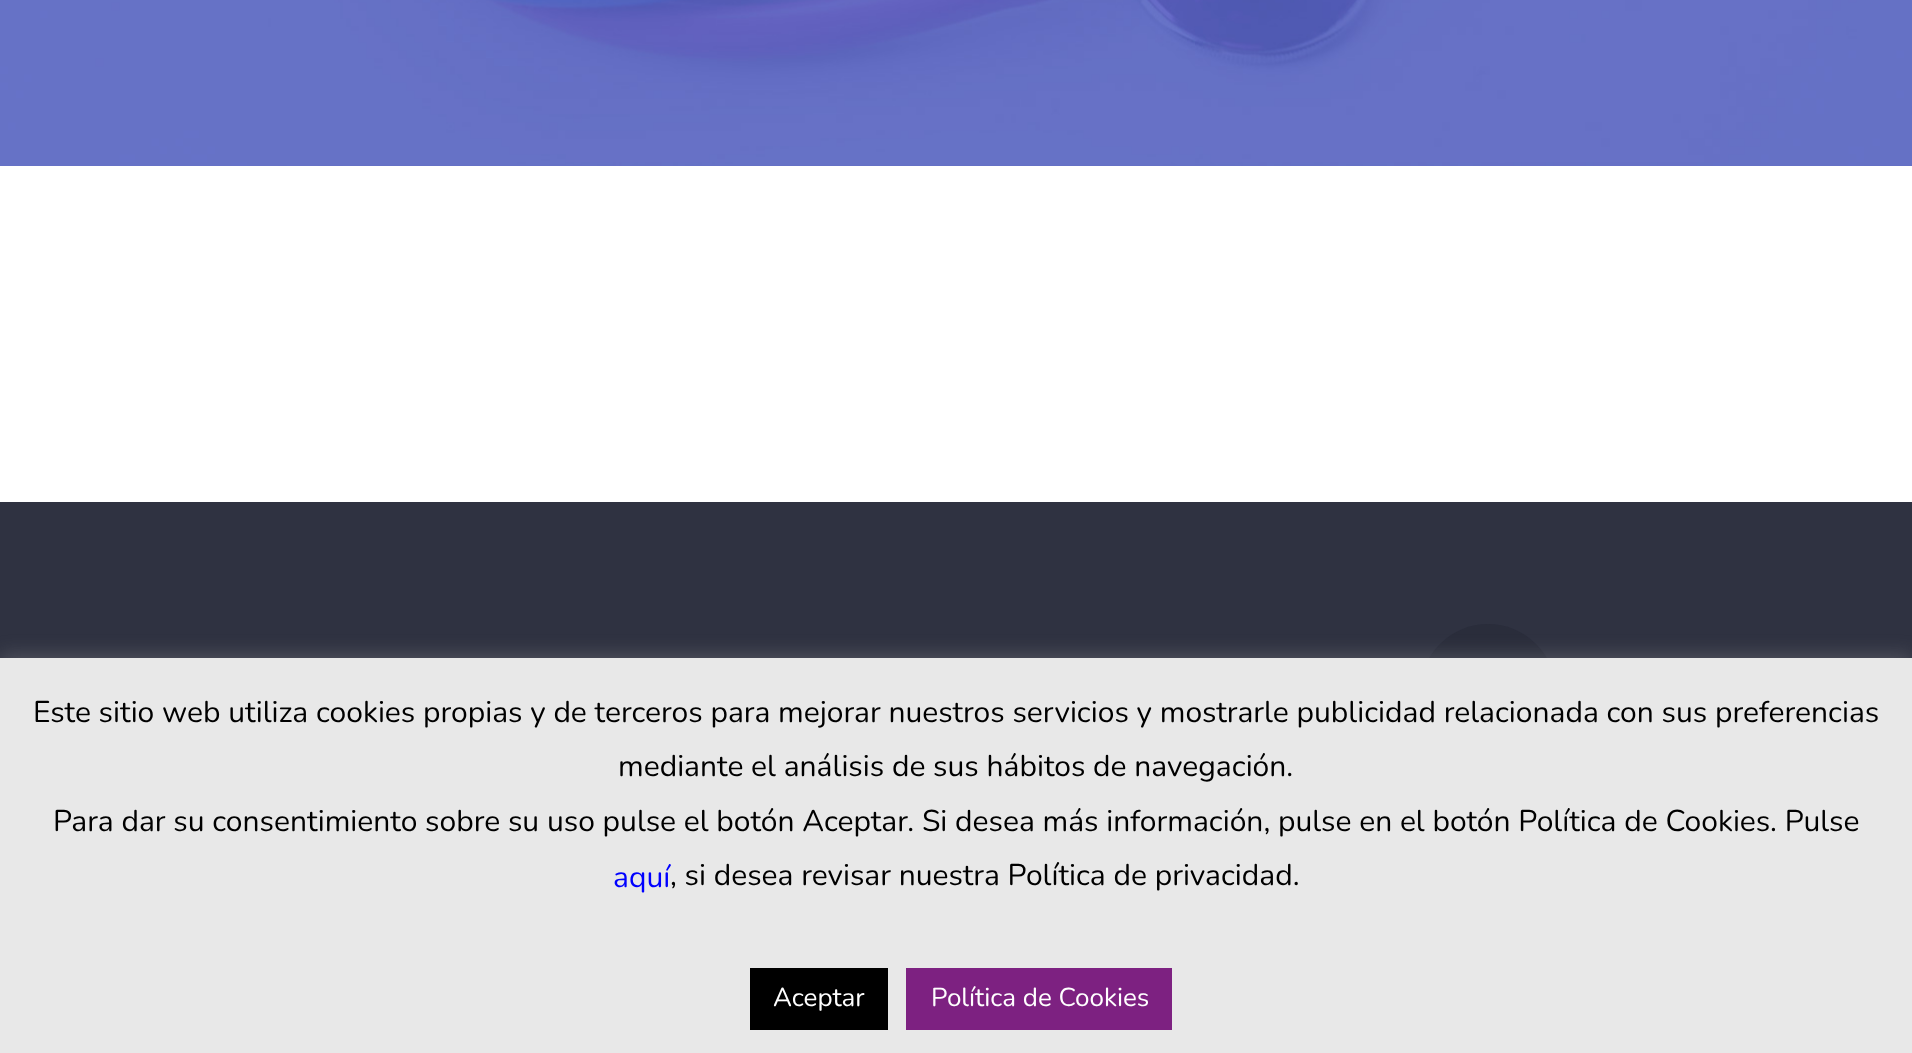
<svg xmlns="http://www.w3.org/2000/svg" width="1912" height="1053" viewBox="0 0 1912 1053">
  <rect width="100%" height="100%" fill="rgb(255,255,255)"/>
  <image x="0" y="0" width="1912" height="166" href="pic1.png"/>
  <rect x="0" y="502" width="1912" height="156" fill="rgb(47,50,65)"/>
  <circle cx="1488" cy="692" r="68" fill="rgb(42,45,59)"/>
  <rect x="0" y="656" width="1912" height="396" fill="rgba(172,171,171,0.3)" filter="blur(10px)"/>
  <rect x="0" y="658" width="1912" height="395" fill="rgb(232,232,232)"/>
  <g font-family="Nunito" font-size="30" fill="rgb(0,0,0)">
    <text x="33" y="722">Este sitio web utiliza cookies propias y de terceros para mejorar nuestros servicios y mostrarle publicidad relacionada con sus preferencias</text>
    <text x="618" y="776">mediante el análisis de sus hábitos de navegación.</text>
    <text x="53" y="831">Para dar su consentimiento sobre su uso pulse el botón Aceptar. Si desea más información, pulse en el botón Política de Cookies. Pulse</text>
  </g>
  <text x="613" y="887" font-family="Nunito" font-size="30" fill="rgb(0,0,255)">aquí</text>
  <text x="670" y="885" font-family="Nunito" font-size="30" fill="rgb(0,0,0)">, si desea revisar nuestra Política de privacidad.</text>
  <rect x="750" y="968" width="138" height="62" fill="rgb(0,0,0)"/>
  <text x="773" y="1006" font-family="Nunito" font-size="26" fill="rgb(255,255,255)">Aceptar</text>
  <rect x="906" y="968" width="266" height="62" fill="rgb(125,33,129)"/>
  <text x="931" y="1006" font-family="Nunito" font-size="26" fill="rgb(255,255,255)">Política de Cookies</text>
</svg>
